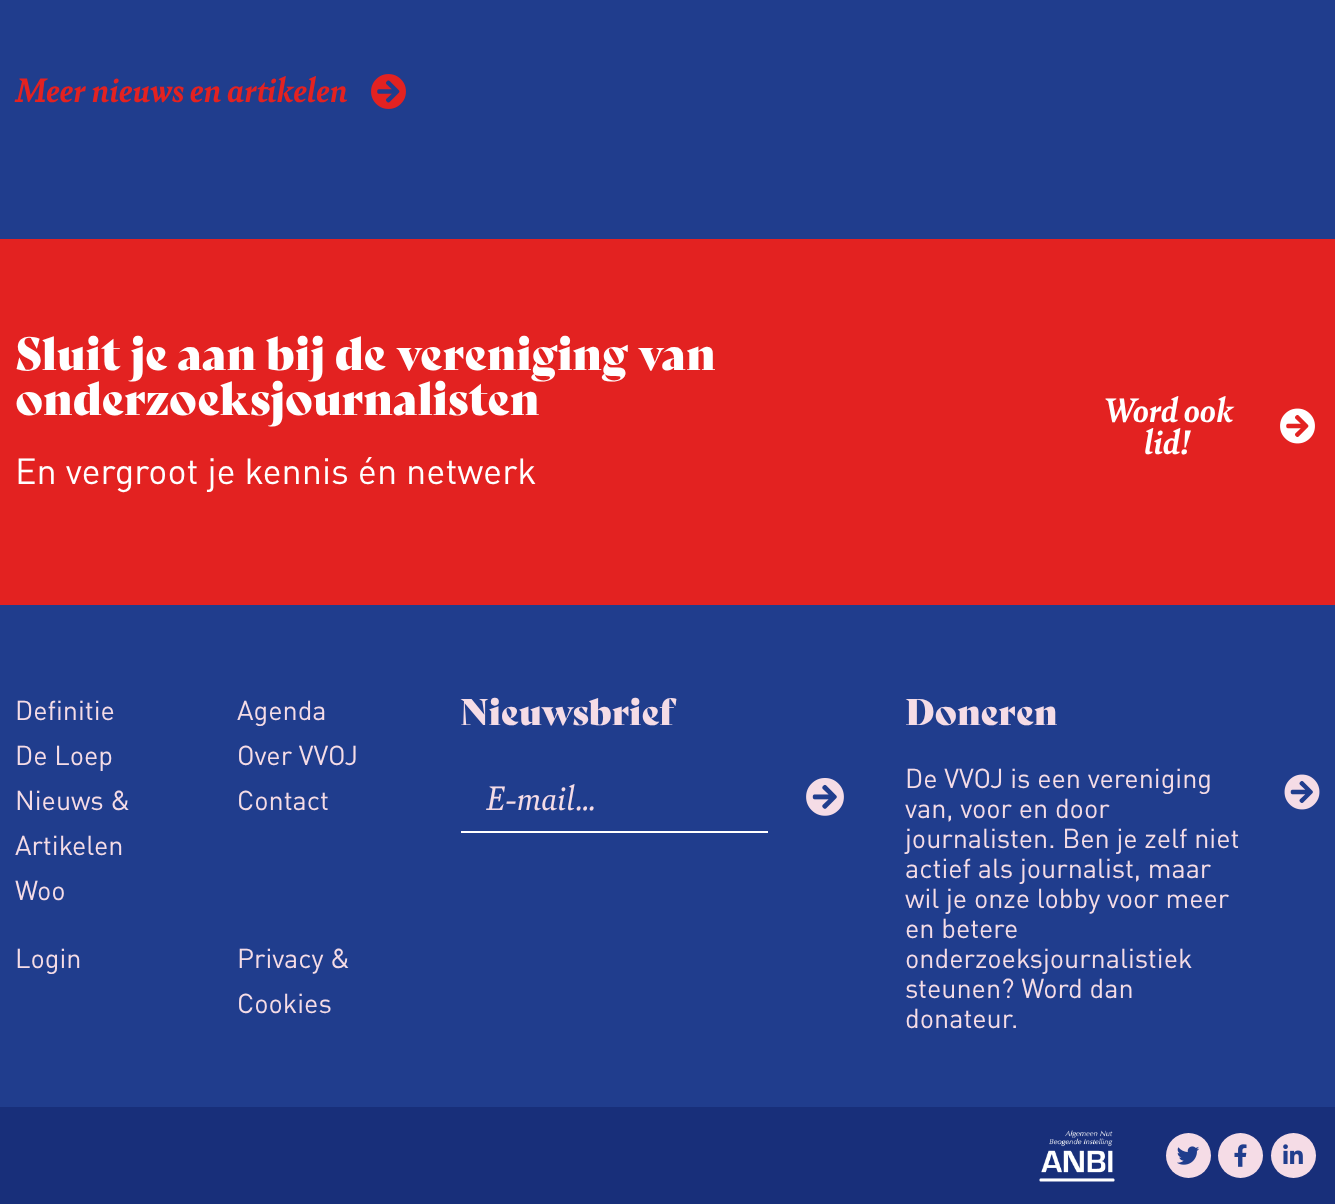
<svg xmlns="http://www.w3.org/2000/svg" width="1335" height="1204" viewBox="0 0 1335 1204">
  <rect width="100%" height="100%" fill="rgb(32,61,141)"/>
  <text x="15" y="102" font-family="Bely" font-size="36" font-weight="bold" font-style="italic" fill="rgb(227,34,33)">Meer nieuws en artikelen</text>
  <image x="371" y="74" width="35" height="35" href="pic1.png"/>
  <rect x="0" y="239" width="1335" height="366" fill="rgb(227,34,33)"/>
  <g font-family="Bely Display" font-size="45" fill="rgb(255,255,255)">
    <text>
      <tspan x="15" y="370">Sluit je aan bij de vereniging van</tspan>
      <tspan x="15" y="415">onderzoeksjournalisten</tspan>
    </text>
  </g>
  <text x="15" y="484" font-family="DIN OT" font-size="36" fill="rgb(255,255,255)">En vergroot je kennis én netwerk</text>
  <g font-family="Bely" font-size="36" font-weight="bold" font-style="italic" fill="rgb(255,255,255)">
    <text x="1103" y="422">Word ook</text>
    <text x="1144" y="454">lid!</text>
  </g>
  <image x="1280" y="408" width="35" height="36" href="pic2.png"/>
  <g font-family="DIN OT" font-size="27" fill="rgb(245,220,230)">
    <text>
      <tspan x="15" y="720">Definitie</tspan>
      <tspan x="15" y="765">De Loep</tspan>
      <tspan x="15" y="810">Nieuws &amp;</tspan>
      <tspan x="15" y="855">Artikelen</tspan>
      <tspan x="15" y="900">Woo</tspan>
    </text>
    <text>
      <tspan x="237" y="720">Agenda</tspan>
      <tspan x="237" y="765">Over VVOJ</tspan>
      <tspan x="237" y="810">Contact</tspan>
    </text>
    <text x="15" y="968">Login</text>
    <text>
      <tspan x="237" y="968">Privacy &amp;</tspan>
      <tspan x="237" y="1013">Cookies</tspan>
    </text>
  </g>
  <text x="460" y="725" font-family="Bely Display" font-size="36" fill="rgb(245,220,230)">Nieuwsbrief</text>
  <rect x="461" y="831" width="307" height="2" fill="rgb(255,255,255)"/>
  <text x="485" y="810" font-family="Bely" font-size="36" font-style="italic" fill="rgb(245,220,230)">E-mail...</text>
  <image x="806" y="778" width="38" height="38" href="pic3.png"/>
  <text x="905" y="725" font-family="Bely Display" font-size="36" fill="rgb(245,220,230)">Doneren</text>
  <g font-family="DIN OT" font-size="27" fill="rgb(245,220,230)">
    <text>
      <tspan x="905" y="788">De VVOJ is een vereniging</tspan>
      <tspan x="905" y="818">van, voor en door</tspan>
      <tspan x="905" y="848">journalisten. Ben je zelf niet</tspan>
      <tspan x="905" y="878">actief als journalist, maar</tspan>
      <tspan x="905" y="908">wil je onze lobby voor meer</tspan>
      <tspan x="905" y="938">en betere</tspan>
      <tspan x="905" y="968">onderzoeksjournalistiek</tspan>
      <tspan x="905" y="998">steunen? Word dan</tspan>
      <tspan x="905" y="1028">donateur.</tspan>
    </text>
  </g>
  <image x="1284" y="774" width="36" height="36" href="pic4.png"/>
  <rect x="0" y="1107" width="1335" height="97" fill="rgb(24,47,122)"/>
  <image x="1039" y="1130" width="76" height="52" href="pic5.png"/>
  <circle cx="1188.5" cy="1155.5" r="22.5" fill="rgb(245,220,230)"/>
  <image x="1177" y="1146" width="23" height="19" href="pic6.png"/>
  <circle cx="1240.5" cy="1155.5" r="22.5" fill="rgb(245,220,230)"/>
  <image x="1234" y="1144" width="13" height="23" href="pic7.png"/>
  <circle cx="1293.5" cy="1155.5" r="22.5" fill="rgb(245,220,230)"/>
  <image x="1283" y="1144" width="20" height="20" href="pic8.png"/>
</svg>
